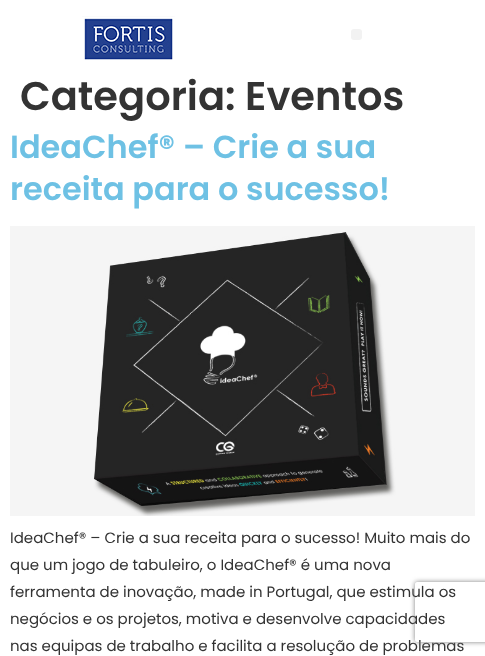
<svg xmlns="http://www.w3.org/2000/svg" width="485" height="656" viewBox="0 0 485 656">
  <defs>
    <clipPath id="clip1"><path d="M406 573H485V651H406ZM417 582H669C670 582 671 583 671 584V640C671 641 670 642 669 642H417C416 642 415 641 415 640V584C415 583 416 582 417 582Z" clip-rule="evenodd"/></clipPath>
  </defs>
  <rect width="100%" height="100%" fill="rgb(255,255,255)"/>
  <image x="82" y="16" width="93" height="44" href="pic1.png"/>
  <rect x="351" y="29" width="11" height="11" rx="3" fill="rgb(242,242,242)"/>
  <text x="20" y="110" font-family="Poppins" font-size="40" font-weight="600" fill="rgb(51,51,51)">Categoria: Eventos</text>
  <g font-family="Poppins" font-size="32" font-weight="600" fill="rgb(110,193,228)">
    <text>
      <tspan x="10" y="158">IdeaChef® – Crie a sua</tspan>
      <tspan x="10" y="200">receita para o sucesso!</tspan>
    </text>
  </g>
  <image x="10" y="226" width="465" height="290" href="pic2.png"/>
  <g font-family="Poppins" font-size="15" fill="rgb(51,51,51)">
    <text>
      <tspan x="10" y="543">IdeaChef® – Crie a sua receita para o sucesso! Muito mais do</tspan>
      <tspan x="10" y="570">que um jogo de tabuleiro, o IdeaChef® é uma nova</tspan>
      <tspan x="10" y="597">ferramenta de inovação, made in Portugal, que estimula os</tspan>
      <tspan x="10" y="624">negócios e os projetos, motiva e desenvolve capacidades</tspan>
      <tspan x="10" y="651">nas equipas de trabalho e facilita a resolução de problemas</tspan>
    </text>
  </g>
  <g clip-path="url(#clip1)">
    <rect x="415" y="582" width="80" height="60" rx="2" fill="rgb(128,128,128)" filter="blur(2.5px)"/>
  </g>
</svg>
